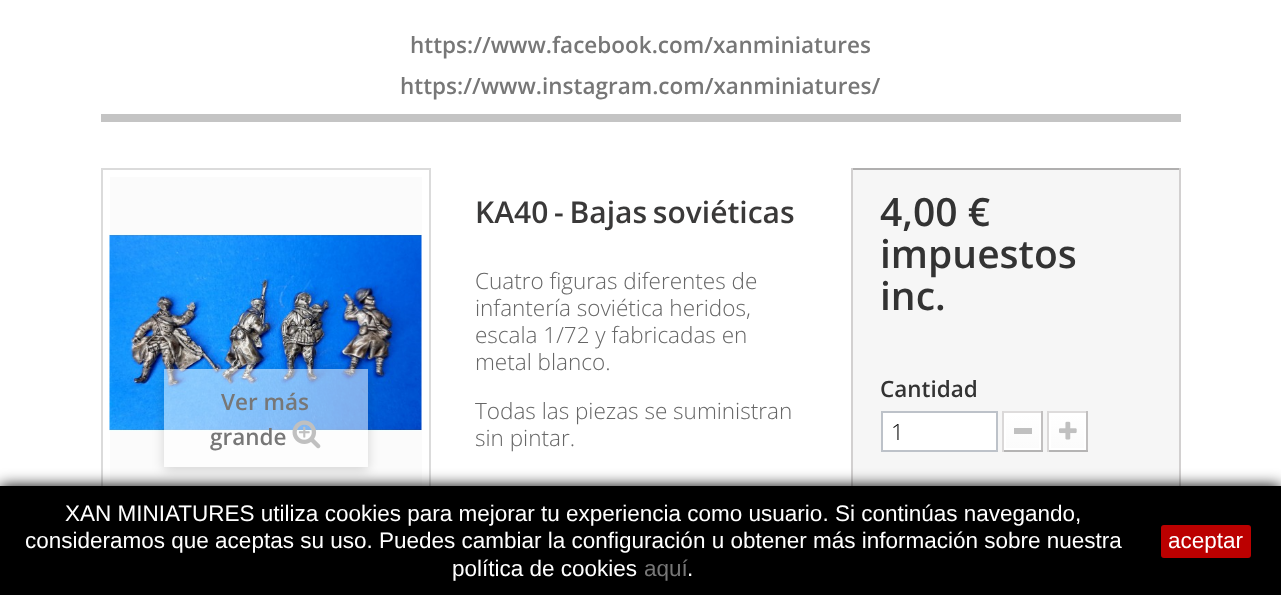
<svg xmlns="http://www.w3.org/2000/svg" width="1281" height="595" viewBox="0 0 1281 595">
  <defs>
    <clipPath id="clip1"><path d="M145 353H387V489H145ZM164 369H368V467H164Z" clip-rule="evenodd"/></clipPath>
    <linearGradient id="g1" gradientUnits="userSpaceOnUse" x1="1022" y1="414" x2="1022" y2="449"><stop offset="0" stop-color="rgb(255,255,255)"/><stop offset="1" stop-color="rgb(251,251,251)"/></linearGradient>
    <linearGradient id="g2" gradientUnits="userSpaceOnUse" x1="1067" y1="414" x2="1067" y2="449"><stop offset="0" stop-color="rgb(255,255,255)"/><stop offset="1" stop-color="rgb(251,251,251)"/></linearGradient>
  </defs>
  <rect width="100%" height="100%" fill="rgb(255,255,255)"/>
  <g font-family="Open Sans" font-size="22.5" font-weight="600" fill="rgb(119,119,119)">
    <text x="410" y="53">https://www.facebook.com/xanminiatures</text>
    <text x="400" y="94">https://www.instagram.com/xanminiatures/</text>
  </g>
  <rect x="101" y="114" width="1080" height="8" fill="rgb(196,196,196)"/>
  <rect x="102" y="169" width="328" height="328" fill="none" stroke="rgb(219,219,219)" stroke-width="2"/>
  <rect x="110" y="177" width="312" height="309" fill="rgb(251,251,251)"/>
  <image x="109" y="234" width="313" height="197" href="pic1.png"/>
  <g clip-path="url(#clip1)">
    <rect x="164" y="372" width="204" height="98" fill="rgba(0,0,0,0.16)" filter="blur(6px)"/>
  </g>
  <rect x="164" y="369" width="204" height="98" fill="rgba(255,255,255,0.5)"/>
  <g font-family="Open Sans" font-size="22.5" font-weight="600" fill="rgb(119,119,119)">
    <text x="221" y="410">Ver más</text>
    <text x="210" y="445">grande</text>
  </g>
  <image x="292" y="420" width="29" height="29" href="pic2.png"/>
  <text x="475" y="223" word-spacing="-2" font-family="Open Sans" font-size="30" font-weight="600" fill="rgb(58,57,57)">KA40 - Bajas soviéticas</text>
  <g font-family="Open Sans" font-size="22.5" font-weight="300" fill="rgb(102,102,102)">
    <text>
      <tspan x="475" y="289">Cuatro figuras diferentes de</tspan>
      <tspan x="475" y="316">infantería soviética heridos,</tspan>
      <tspan x="475" y="343">escala 1/72 y fabricadas en</tspan>
      <tspan x="475" y="370">metal blanco.</tspan>
    </text>
    <text>
      <tspan x="475" y="419">Todas las piezas se suministran</tspan>
      <tspan x="475" y="446">sin pintar.</tspan>
    </text>
  </g>
  <rect x="853" y="170" width="326" height="316" fill="rgb(246,246,246)"/>
  <rect x="851" y="168" width="330" height="2" fill="rgb(176,175,175)"/>
  <rect x="1179" y="168" width="2" height="318" fill="rgb(210,208,208)"/>
  <rect x="851" y="168" width="2" height="318" fill="rgb(210,208,208)"/>
  <g font-family="Open Sans" font-size="39" font-weight="600" fill="rgb(51,51,51)">
    <text>
      <tspan x="880" y="226">4,00 €</tspan>
      <tspan x="880" y="268">impuestos</tspan>
      <tspan x="880" y="310">inc.</tspan>
    </text>
  </g>
  <text x="880" y="397" font-family="Open Sans" font-size="22.5" font-weight="600" fill="rgb(51,51,51)">Cantidad</text>
  <rect x="882" y="412" width="115" height="39" fill="rgb(255,255,255)" stroke="rgb(189,194,201)" stroke-width="2"/>
  <text x="891" y="440" font-family="Open Sans" font-size="22.5" font-weight="300" fill="rgb(0,0,0)">1</text>
  <rect x="1002" y="411" width="41" height="2" fill="rgb(222,220,220)"/>
  <rect x="1041" y="411" width="2" height="41" fill="rgb(193,191,191)"/>
  <rect x="1002" y="450" width="41" height="2" fill="rgb(181,180,180)"/>
  <rect x="1002" y="411" width="2" height="41" fill="rgb(218,216,216)"/>
  <rect x="1006" y="415" width="33" height="33" fill="url(#g1)"/>
  <rect x="1005" y="414" width="35" height="35" fill="none" stroke="rgb(255,255,255)" stroke-width="2"/>
  <rect x="1014" y="428" width="18" height="6" fill="rgb(192,192,192)"/>
  <rect x="1047" y="411" width="41" height="2" fill="rgb(222,220,220)"/>
  <rect x="1086" y="411" width="2" height="41" fill="rgb(193,191,191)"/>
  <rect x="1047" y="450" width="41" height="2" fill="rgb(181,180,180)"/>
  <rect x="1047" y="411" width="2" height="41" fill="rgb(218,216,216)"/>
  <rect x="1051" y="415" width="33" height="33" fill="url(#g2)"/>
  <rect x="1050" y="414" width="35" height="35" fill="none" stroke="rgb(255,255,255)" stroke-width="2"/>
  <image x="1059" y="421" width="18" height="19" href="pic3.png"/>
  <rect x="0" y="486" width="1281" height="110" fill="rgb(0,0,0)" filter="blur(7.5px)"/>
  <rect x="0" y="486" width="1281" height="109" fill="rgb(0,0,0)"/>
  <g font-family="Liberation Sans" font-size="22.5" fill="rgb(255,255,255)">
    <text x="65" y="521">XAN MINIATURES utiliza cookies para mejorar tu experiencia como usuario. Si continúas navegando,</text>
    <text x="25" y="548">consideramos que aceptas su uso. Puedes cambiar la configuración u obtener más información sobre nuestra</text>
    <text x="452" y="576">política de cookies</text>
  </g>
  <text x="644" y="576" font-family="Liberation Sans" font-size="22.5" fill="rgb(119,119,119)">aquí</text>
  <text x="687" y="576" font-family="Liberation Sans" font-size="22.5" fill="rgb(255,255,255)">.</text>
  <rect x="1161" y="525" width="90" height="33" rx="3" fill="rgb(187,0,0)"/>
  <text x="1168" y="548" font-family="Liberation Sans" font-size="22.5" fill="rgb(255,255,255)">aceptar</text>
</svg>
